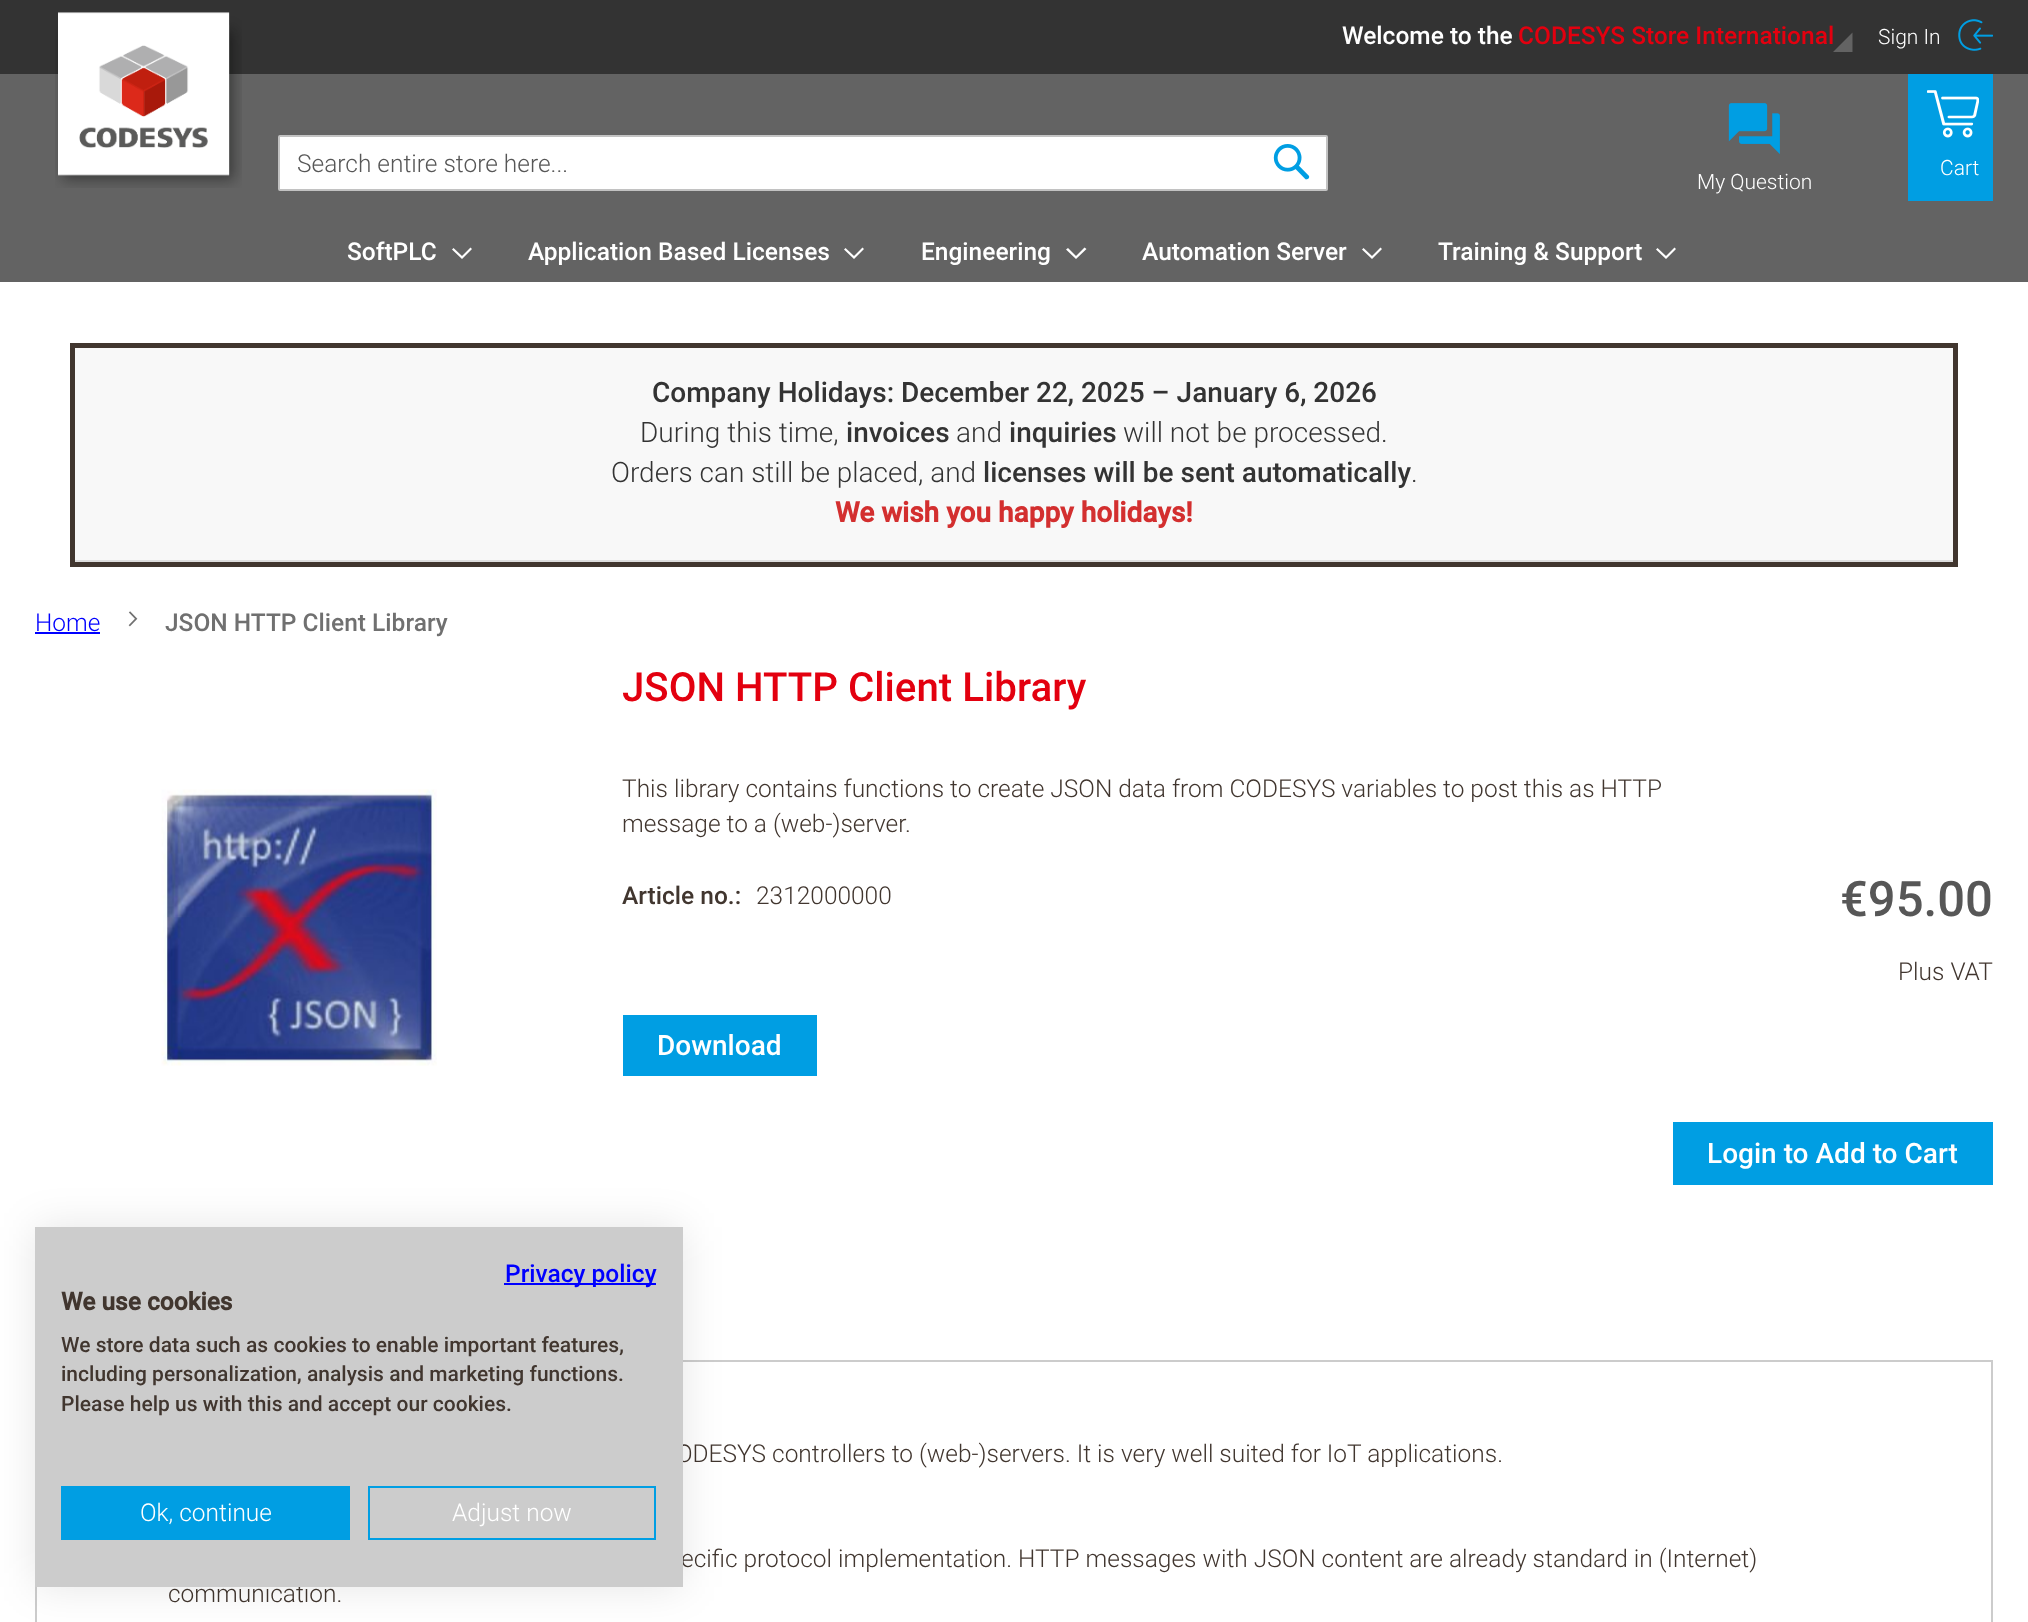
<svg xmlns="http://www.w3.org/2000/svg" width="2028" height="1622" viewBox="0 0 2028 1622">
  <rect width="100%" height="100%" fill="rgb(255,255,255)"/>
  <rect x="0" y="74" width="2028" height="208" fill="rgb(99,99,99)"/>
  <rect x="0" y="0" width="2028" height="74" fill="rgb(51,51,51)"/>
  <text x="1342" y="44" font-family="Roboto" font-size="24.5" font-weight="500" fill="rgb(255,255,255)">Welcome to the</text>
  <text x="1518" y="44" font-family="Roboto" font-size="24.5" font-weight="500" fill="rgb(227,0,15)">CODESYS Store International</text>
  <path d="M1833 52L1852.5 32.5V52Z" fill="rgb(99,99,99)"/>
  <text x="1878" y="44" font-family="Roboto" font-size="21" font-weight="300" fill="rgb(255,255,255)">Sign In</text>
  <image x="1958" y="19" width="35" height="32" href="pic1.png"/>
  <image x="55" y="12" width="187" height="176" href="pic2.png"/>
  <rect x="279" y="136" width="1048" height="54" rx="1" fill="rgb(255,255,255)" stroke="rgb(194,194,194)" stroke-width="2"/>
  <text x="297" y="172" font-family="Roboto" font-size="24.5" font-weight="300" fill="rgb(87,87,87)">Search entire store here...</text>
  <image x="1273" y="144" width="37" height="36" href="pic3.png"/>
  <rect x="1908" y="74" width="85" height="127" fill="rgb(0,158,227)"/>
  <image x="1927" y="90" width="52" height="48" href="pic4.png"/>
  <text x="1940" y="175" font-family="Roboto" font-size="21" font-weight="300" fill="rgb(255,255,255)">Cart</text>
  <image x="1728" y="103" width="52" height="51" href="pic5.png"/>
  <text x="1697" y="189" font-family="Roboto" font-size="21" font-weight="300" fill="rgb(255,255,255)">My Question</text>
  <text x="347" y="260" font-family="Roboto" font-size="24.5" font-weight="500" fill="rgb(255,255,255)">SoftPLC</text>
  <path d="M462 256L453.5 248L452 249.5L462 259L472 249L470.5 247.5Z" fill="rgb(255,255,255)"/>
  <text x="528" y="260" font-family="Roboto" font-size="24.5" font-weight="500" fill="rgb(255,255,255)">Application Based Licenses</text>
  <path d="M854 256L845.5 248L844 249.5L854 259L864 249L862.5 247.5Z" fill="rgb(255,255,255)"/>
  <text x="921" y="260" font-family="Roboto" font-size="24.5" font-weight="500" fill="rgb(255,255,255)">Engineering</text>
  <path d="M1076 256L1068 248L1066 249.5L1076 259L1086.5 249L1084.5 247.5Z" fill="rgb(255,255,255)"/>
  <text x="1142" y="260" font-family="Roboto" font-size="24.5" font-weight="500" fill="rgb(255,255,255)">Automation Server</text>
  <path d="M1372 256L1363.5 248L1362 249.5L1372 259L1382 249L1380.5 247.5Z" fill="rgb(255,255,255)"/>
  <text x="1438" y="260" font-family="Roboto" font-size="24.5" font-weight="500" fill="rgb(255,255,255)">Training &amp; Support</text>
  <path d="M1666 256L1657.5 248L1656 249.5L1666 259L1676 249L1674.5 247.5Z" fill="rgb(255,255,255)"/>
  <rect x="72.5" y="345.5" width="1883" height="219" fill="none" stroke="rgb(65,54,47)" stroke-width="5"/>
  <rect x="75" y="348" width="1878" height="212" fill="rgb(248,248,248)"/>
  <rect x="75" y="560" width="1878" height="2" fill="rgb(221,221,221)"/>
  <text x="652" y="402" font-family="Roboto" font-size="28" font-weight="500" fill="rgb(51,51,51)">Company Holidays: December 22, 2025 – January 6, 2026</text>
  <text x="640" y="442" font-family="Roboto" font-size="28" font-weight="300" fill="rgb(51,51,51)">During this time,</text>
  <text x="846" y="442" font-family="Roboto" font-size="28" font-weight="500" fill="rgb(51,51,51)">invoices</text>
  <text x="956" y="442" font-family="Roboto" font-size="28" font-weight="300" fill="rgb(51,51,51)">and</text>
  <text x="1009" y="442" font-family="Roboto" font-size="28" font-weight="500" fill="rgb(51,51,51)">inquiries</text>
  <g font-family="Roboto" font-size="28" font-weight="300" fill="rgb(51,51,51)">
    <text x="1123" y="442">will not be processed.</text>
    <text x="611" y="482">Orders can still be placed, and</text>
  </g>
  <text x="983" y="482" font-family="Roboto" font-size="28" font-weight="500" fill="rgb(51,51,51)">licenses will be sent automatically</text>
  <text x="1411" y="482" font-family="Roboto" font-size="28" font-weight="300" fill="rgb(51,51,51)">.</text>
  <text x="835" y="522" font-family="Roboto" font-size="28" font-weight="bold" fill="rgb(211,47,47)">We wish you happy holidays!</text>
  <text x="35" y="631" font-family="Roboto" font-size="24.5" font-weight="300" fill="rgb(0,0,255)">Home</text>
  <rect x="35" y="632" width="65" height="2" fill="rgb(0,0,255)"/>
  <image x="128" y="611" width="10" height="16" href="pic6.png"/>
  <text x="165" y="631" font-family="Roboto" font-size="24.5" font-weight="500" fill="rgb(112,112,112)">JSON HTTP Client Library</text>
  <image x="161" y="789" width="276" height="277" href="pic7.png"/>
  <text x="622" y="701" font-family="Roboto" font-size="40.25" font-weight="500" fill="rgb(227,0,15)">JSON HTTP Client Library</text>
  <g font-family="Roboto" font-size="24.5" font-weight="300" fill="rgb(65,54,47)">
    <text>
      <tspan x="622" y="797">This library contains functions to create JSON data from CODESYS variables to post this as HTTP</tspan>
      <tspan x="622" y="832">message to a (web-)server.</tspan>
    </text>
  </g>
  <text x="622" y="904" font-family="Roboto" font-size="24.5" font-weight="500" fill="rgb(65,54,47)">Article no.:</text>
  <text x="756" y="904" font-family="Roboto" font-size="24.5" font-weight="300" fill="rgb(65,54,47)">2312000000</text>
  <text x="1840" y="916" font-family="Roboto" font-size="49" font-weight="500" fill="rgb(87,87,87)">€95.00</text>
  <text x="1898" y="980" font-family="Roboto" font-size="24.5" font-weight="300" fill="rgb(65,54,47)">Plus VAT</text>
  <rect x="623" y="1015" width="194" height="61" fill="rgb(0,158,227)"/>
  <text x="657" y="1055" font-family="Roboto" font-size="28" font-weight="500" fill="rgb(255,255,255)">Download</text>
  <rect x="1673" y="1122" width="320" height="63" fill="rgb(0,158,227)"/>
  <text x="1707" y="1163" font-family="Roboto" font-size="28" font-weight="500" fill="rgb(255,255,255)">Login to Add to Cart</text>
  <rect x="36" y="1361" width="1956" height="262" fill="none" stroke="rgb(204,204,204)" stroke-width="2"/>
  <g font-family="Roboto" font-size="24.5" font-weight="300" fill="rgb(65,54,47)">
    <text x="676" y="1462">ODESYS controllers to (web-)servers. It is very well suited for IoT applications.</text>
    <text x="681" y="1567">ecific protocol implementation. HTTP messages with JSON content are already standard in (Internet)</text>
    <text x="168" y="1602">communication.</text>
  </g>
  <rect x="35" y="1227" width="648" height="360" fill="rgba(0,0,0,0.1)" filter="blur(21px)"/>
  <rect x="35" y="1227" width="648" height="360" fill="rgb(204,204,204)"/>
  <rect x="504" y="1283" width="152" height="2" fill="rgb(0,0,255)"/>
  <text x="505" y="1282" font-family="Roboto" font-size="24.5" font-weight="500" fill="rgb(0,0,255)">Privacy policy</text>
  <text x="61" y="1310" font-family="Roboto" font-size="24.5" font-weight="bold" fill="rgb(65,54,47)">We use cookies</text>
  <g font-family="Roboto" font-size="21" font-weight="500" fill="rgb(65,54,47)">
    <text>
      <tspan x="61" y="1352">We store data such as cookies to enable important features,</tspan>
      <tspan x="61" y="1381">including personalization, analysis and marketing functions.</tspan>
      <tspan x="61" y="1411">Please help us with this and accept our cookies.</tspan>
    </text>
  </g>
  <rect x="61" y="1486" width="289" height="54" fill="rgb(0,158,227)"/>
  <text x="140" y="1521" font-family="Roboto" font-size="24.5" font-weight="300" fill="rgb(255,255,255)">Ok, continue</text>
  <rect x="369" y="1487" width="286" height="52" fill="none" stroke="rgb(0,158,227)" stroke-width="2"/>
  <text x="452" y="1521" font-family="Roboto" font-size="24.5" font-weight="300" fill="rgb(255,255,255)">Adjust now</text>
</svg>
